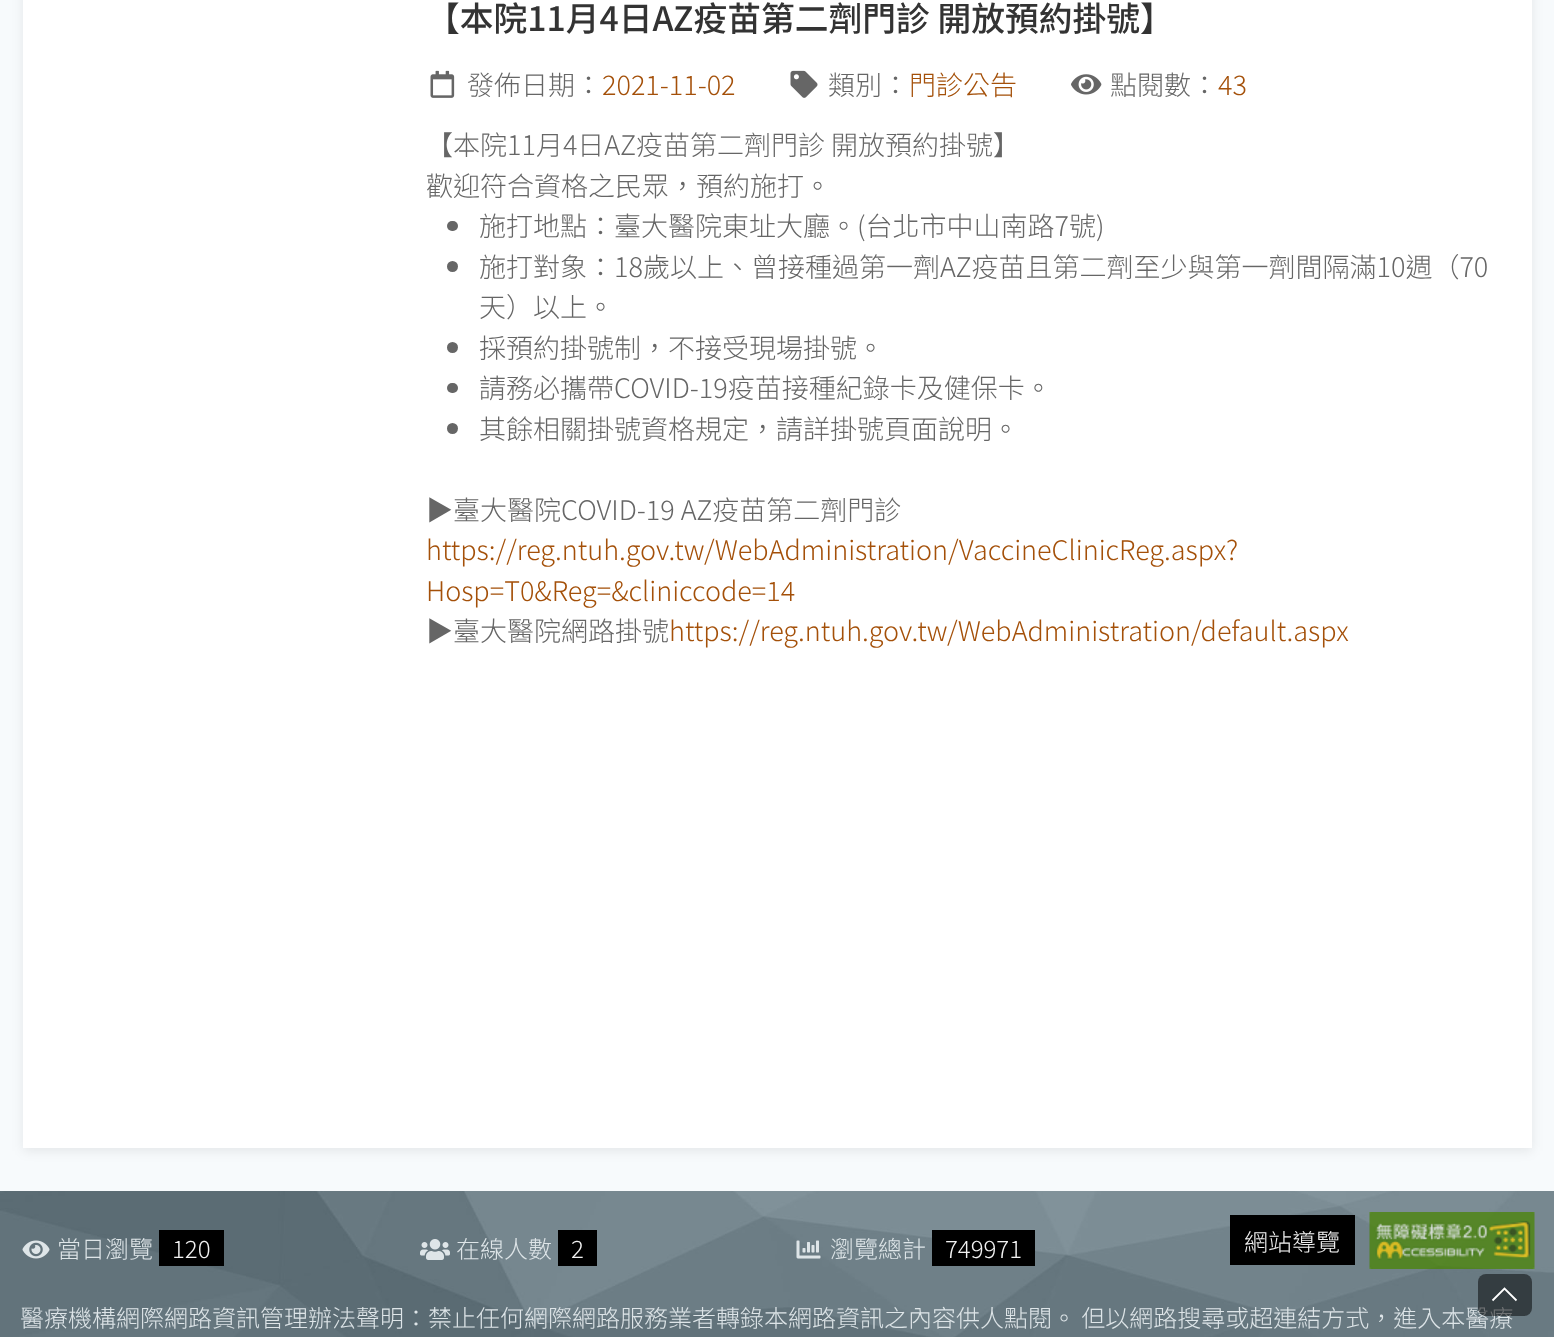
<svg xmlns="http://www.w3.org/2000/svg" width="1554" height="1337" viewBox="0 0 1554 1337">
  <rect width="100%" height="100%" fill="rgb(247,250,252)"/>
  <rect x="23" y="-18" width="1509" height="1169" fill="rgba(0,0,0,0.08)" filter="blur(6px)"/>
  <rect x="23" y="0" width="1509" height="1148" fill="rgb(255,255,255)"/>
  <text x="426" y="31" font-family="Noto Sans TC" font-size="33.75" font-weight="500" fill="rgb(51,51,51)">【本院11月4日AZ疫苗第二劑門診 開放預約掛號】</text>
  <image x="430" y="70" width="25" height="28" href="pic1.png"/>
  <text x="467" y="95" font-family="Noto Sans TC" font-size="27" font-weight="300" fill="rgb(102,102,102)">發佈日期：</text>
  <text x="602" y="95" font-family="Noto Sans TC" font-size="27" font-weight="300" fill="rgb(164,80,9)">2021-11-02</text>
  <image x="790" y="70" width="28" height="28" href="pic2.png"/>
  <text x="828" y="95" font-family="Noto Sans TC" font-size="27" font-weight="300" fill="rgb(102,102,102)">類別：</text>
  <text x="909" y="95" font-family="Noto Sans TC" font-size="27" font-weight="300" fill="rgb(164,80,9)">門診公告</text>
  <image x="1071" y="74" width="31" height="21" href="pic3.png"/>
  <text x="1110" y="95" font-family="Noto Sans TC" font-size="27" font-weight="300" fill="rgb(102,102,102)">點閱數：</text>
  <text x="1218" y="95" font-family="Noto Sans TC" font-size="27" font-weight="300" fill="rgb(164,80,9)">43</text>
  <g font-family="Noto Sans TC" font-size="27" font-weight="300" fill="rgb(102,102,102)">
    <text>
      <tspan x="426" y="155">【本院11月4日AZ疫苗第二劑門診 開放預約掛號】</tspan>
      <tspan x="426" y="196">歡迎符合資格之民眾，預約施打。</tspan>
    </text>
  </g>
  <rect x="447" y="221" width="11" height="10" rx="5" fill="rgb(102,102,102)"/>
  <text x="479" y="236" font-family="Noto Sans TC" font-size="27" font-weight="300" fill="rgb(102,102,102)">施打地點：臺大醫院東址大廳。(台北市中山南路7號)</text>
  <circle cx="452.5" cy="266.5" r="5.5" fill="rgb(102,102,102)"/>
  <g font-family="Noto Sans TC" font-size="27" font-weight="300" fill="rgb(102,102,102)">
    <text>
      <tspan x="479" y="277">施打對象：18歲以上、曾接種過第一劑AZ疫苗且第二劑至少與第一劑間隔滿10週（70</tspan>
      <tspan x="479" y="317">天）以上。</tspan>
    </text>
  </g>
  <circle cx="452.5" cy="347.5" r="5.5" fill="rgb(102,102,102)"/>
  <text x="479" y="358" font-family="Noto Sans TC" font-size="27" font-weight="300" fill="rgb(102,102,102)">採預約掛號制，不接受現場掛號。</text>
  <rect x="447" y="383" width="11" height="10" rx="5" fill="rgb(102,102,102)"/>
  <text x="479" y="398" font-family="Noto Sans TC" font-size="27" font-weight="300" fill="rgb(102,102,102)">請務必攜帶COVID-19疫苗接種紀錄卡及健保卡。</text>
  <circle cx="452.5" cy="428.5" r="5.5" fill="rgb(102,102,102)"/>
  <g font-family="Noto Sans TC" font-size="27" font-weight="300" fill="rgb(102,102,102)">
    <text x="479" y="439">其餘相關掛號資格規定，請詳掛號頁面說明。</text>
    <text x="426" y="520">▶臺大醫院COVID-19 AZ疫苗第二劑門診</text>
  </g>
  <g font-family="Noto Sans TC" font-size="27" font-weight="300" fill="rgb(164,80,9)">
    <text>
      <tspan x="426" y="560">https://reg.ntuh.gov.tw/WebAdministration/VaccineClinicReg.aspx?</tspan>
      <tspan x="426" y="601">Hosp=T0&amp;Reg=&amp;cliniccode=14</tspan>
    </text>
  </g>
  <text x="426" y="641" font-family="Noto Sans TC" font-size="27" font-weight="300" fill="rgb(102,102,102)">▶臺大醫院網路掛號</text>
  <text x="669" y="641" font-family="Noto Sans TC" font-size="27" font-weight="300" fill="rgb(164,80,9)">https://reg.ntuh.gov.tw/WebAdministration/default.aspx</text>
  <rect x="0" y="1191" width="1554" height="146" fill="rgb(80,104,115)"/>
  <image x="0" y="1191" width="1554" height="146" href="pic4.png"/>
  <image x="22" y="1240" width="28" height="19" href="pic5.png"/>
  <text x="57" y="1258" font-family="Noto Sans TC" font-size="24" font-weight="300" fill="rgb(222,229,232)">當日瀏覽</text>
  <rect x="159" y="1230" width="65" height="36" fill="rgb(0,0,0)"/>
  <text x="172" y="1258" font-family="Noto Sans TC" font-size="24" font-weight="300" fill="rgb(242,242,242)">120</text>
  <image x="420" y="1239" width="30" height="21" href="pic6.png"/>
  <text x="456" y="1258" font-family="Noto Sans TC" font-size="24" font-weight="300" fill="rgb(222,229,232)">在線人數</text>
  <rect x="558" y="1230" width="39" height="36" fill="rgb(0,0,0)"/>
  <text x="571" y="1258" font-family="Noto Sans TC" font-size="24" font-weight="300" fill="rgb(242,242,242)">2</text>
  <image x="796" y="1240" width="25" height="19" href="pic7.png"/>
  <text x="830" y="1258" font-family="Noto Sans TC" font-size="24" font-weight="300" fill="rgb(222,229,232)">瀏覽總計</text>
  <rect x="932" y="1230" width="103" height="36" fill="rgb(0,0,0)"/>
  <text x="945" y="1258" font-family="Noto Sans TC" font-size="24" font-weight="300" fill="rgb(242,242,242)">749971</text>
  <rect x="1230" y="1215" width="125" height="50" fill="rgb(0,0,0)"/>
  <text x="1244" y="1251" font-family="Noto Sans TC" font-size="24" font-weight="300" fill="rgb(242,242,242)">網站導覽</text>
  <image x="1369" y="1212" width="166" height="57" href="pic8.png"/>
  <text x="20" y="1327" font-family="Noto Sans TC" font-size="24" font-weight="300" fill="rgb(222,229,232)">醫療機構網際網路資訊管理辦法聲明：禁止任何網際網路服務業者轉錄本網路資訊之內容供人點閱。 但以網路搜尋或超連結方式，進入本醫療</text>
  <rect x="1478" y="1274" width="54" height="42" rx="8" fill="rgba(0,0,0,0.5)"/>
  <path d="M1492.5 1300.5L1504.5 1288.5L1516.5 1300.5" fill="none" stroke="rgb(255,255,255)" stroke-width="1.8"/>
</svg>
